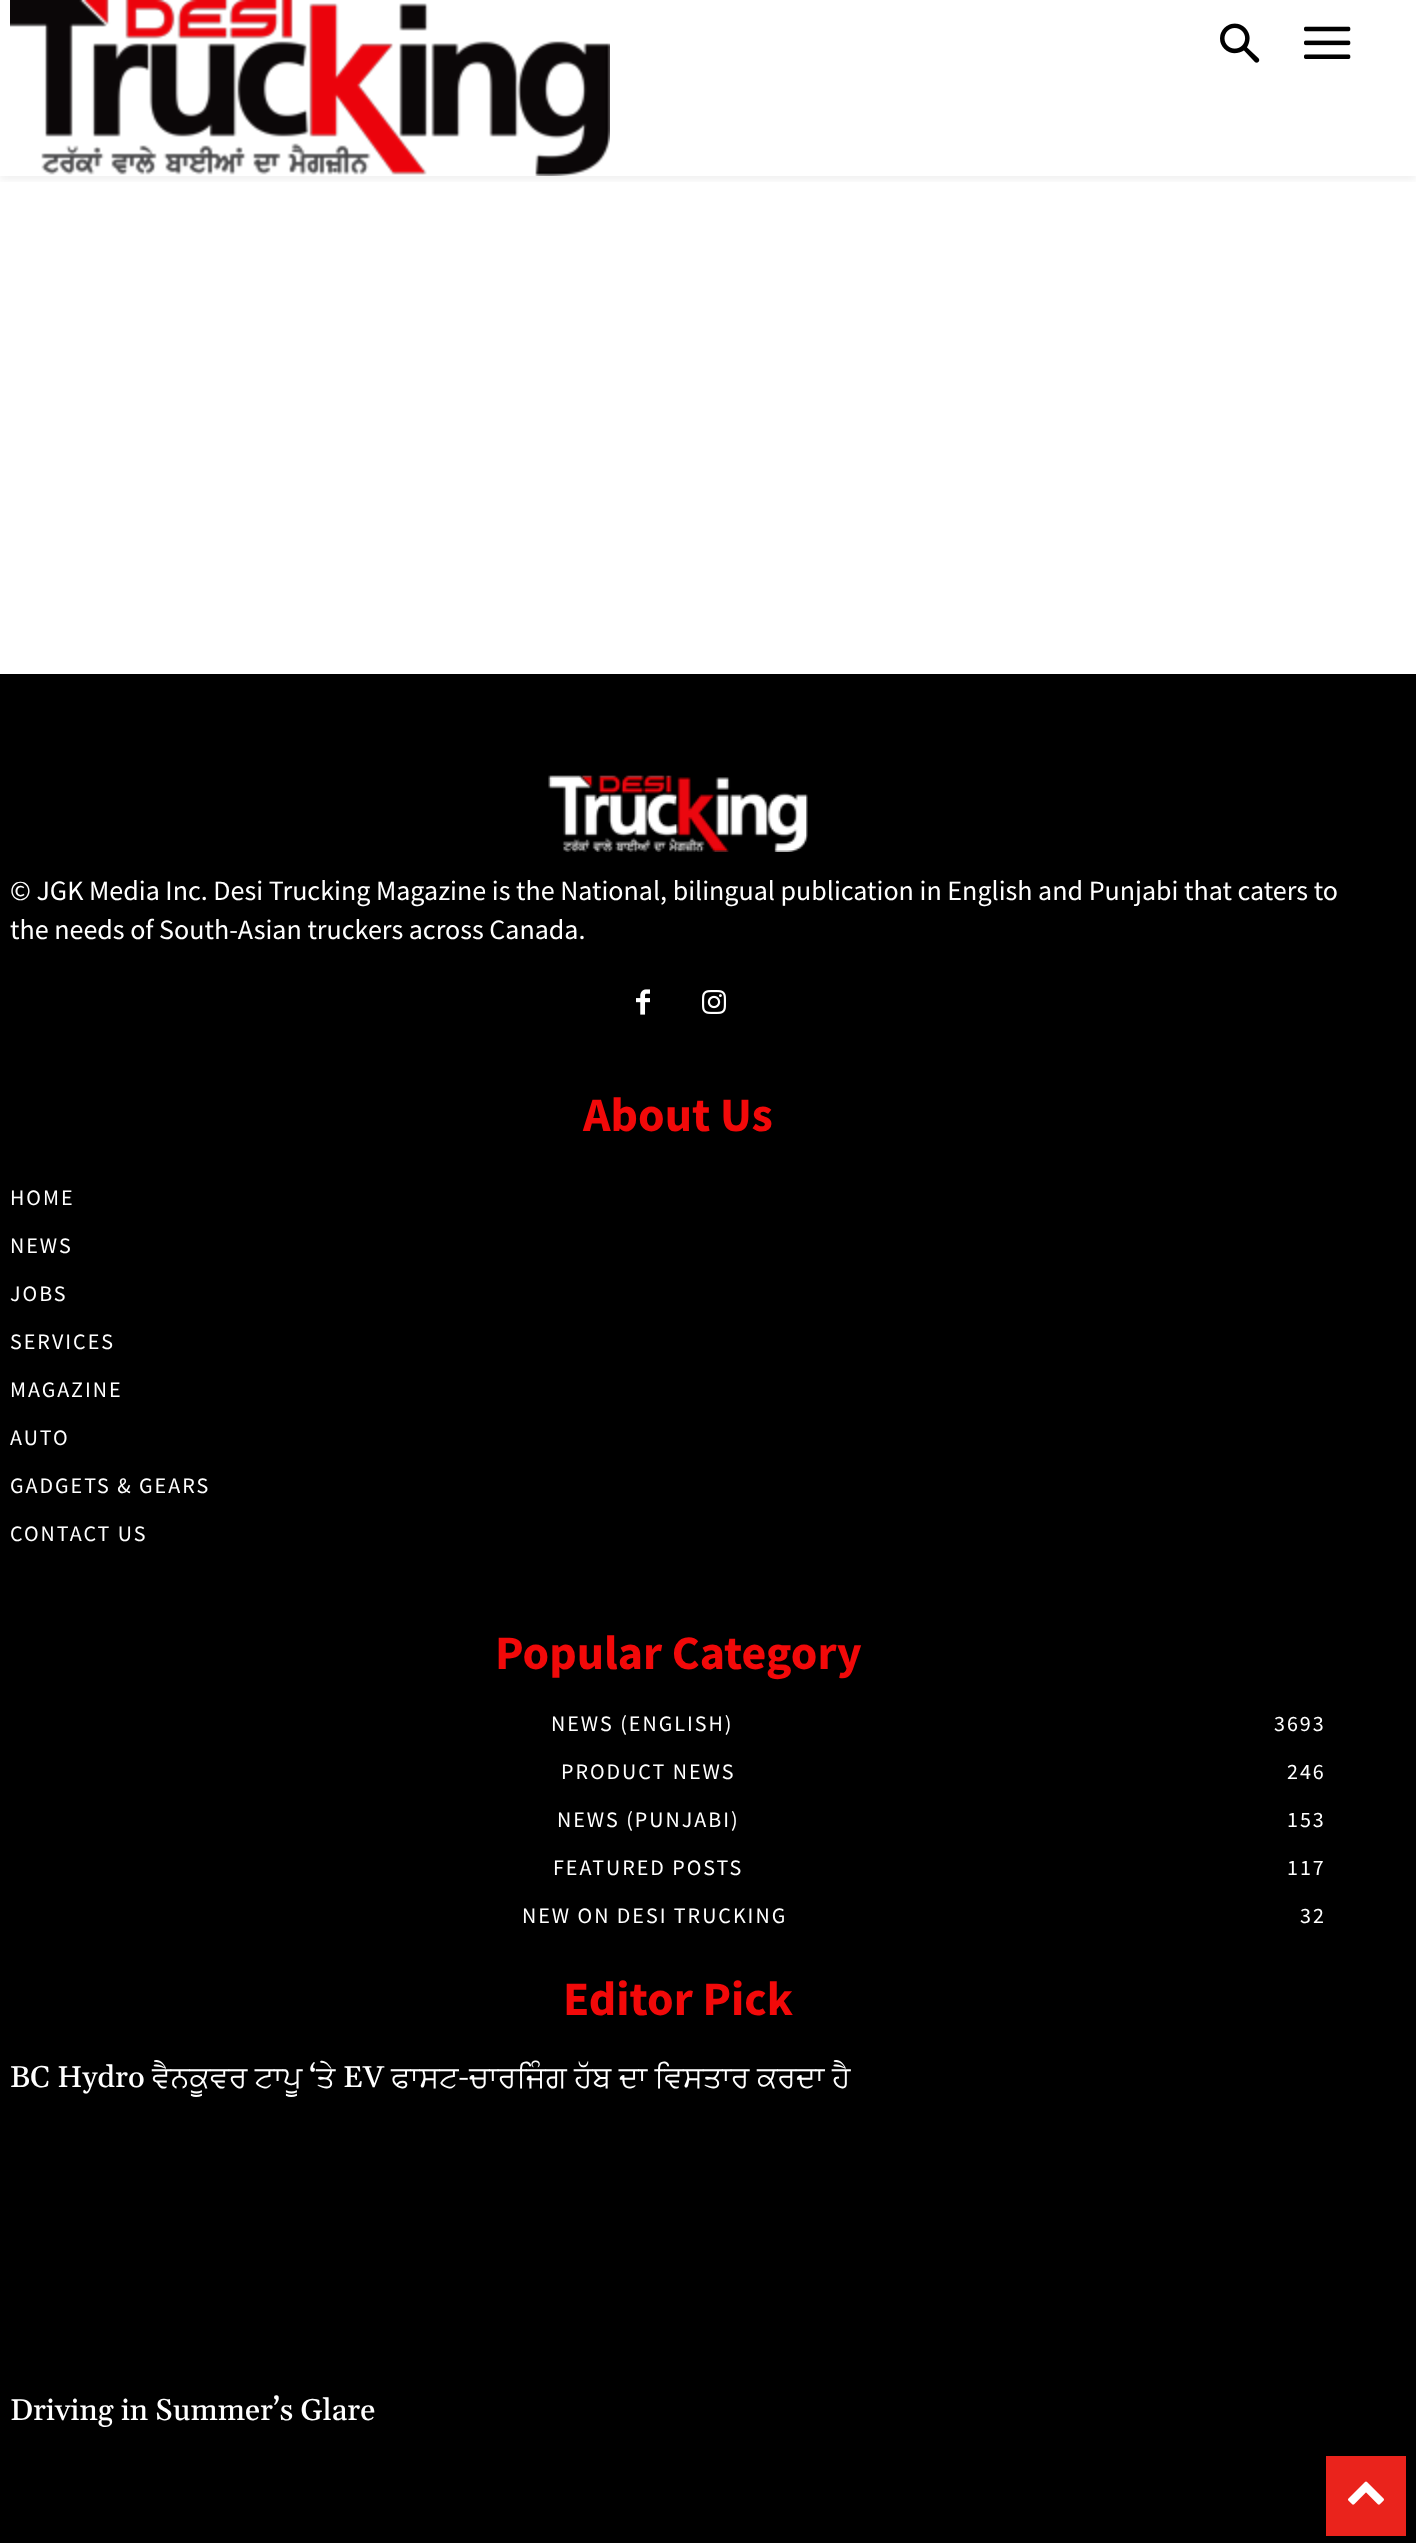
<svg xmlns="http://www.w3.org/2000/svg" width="1416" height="2543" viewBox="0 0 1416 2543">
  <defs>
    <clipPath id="clip1"><rect x="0" y="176" width="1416" height="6"/></clipPath>
  </defs>
  <rect width="100%" height="100%" fill="rgb(255,255,255)"/>
  <image x="10" y="0" width="600" height="176" href="pic1.png"/>
  <image x="1220" y="23" width="40" height="40" href="pic2.png"/>
  <image x="1304" y="26" width="47" height="33" href="pic3.png"/>
  <g clip-path="url(#clip1)">
    <rect x="0" y="4" width="1416" height="176" fill="rgba(0,0,0,0.06)" filter="blur(4px)"/>
  </g>
  <rect x="0" y="674" width="1416" height="1869" fill="rgb(0,0,0)"/>
  <image x="548" y="775" width="260" height="77" href="pic4.png"/>
  <g font-family="Source Sans Pro" font-size="28" fill="rgb(255,255,255)">
    <text>
      <tspan x="10" y="900">© JGK Media Inc. Desi Trucking Magazine is the National, bilingual publication in English and Punjabi that caters to</tspan>
      <tspan x="10" y="939">the needs of South-Asian truckers across Canada.</tspan>
    </text>
  </g>
  <image x="636" y="989" width="14" height="26" href="pic5.png"/>
  <image x="702" y="990" width="24" height="24" href="pic6.png"/>
  <text x="583" y="1131" font-family="Source Sans Pro" font-size="48" font-weight="bold" fill="rgb(242,9,9)">About Us</text>
  <g font-family="Source Sans Pro" font-size="22" letter-spacing="2" fill="rgb(255,255,255)">
    <text x="10" y="1205">HOME</text>
    <text x="10" y="1253">NEWS</text>
    <text x="10" y="1301">JOBS</text>
    <text x="10" y="1349">SERVICES</text>
    <text x="10" y="1397">MAGAZINE</text>
    <text x="10" y="1445">AUTO</text>
    <text x="10" y="1493">GADGETS &amp; GEARS</text>
    <text x="10" y="1541">CONTACT US</text>
  </g>
  <text x="495" y="1669" font-family="Source Sans Pro" font-size="48" font-weight="bold" fill="rgb(242,9,9)">Popular Category</text>
  <g font-family="Source Sans Pro" font-size="22" letter-spacing="2" fill="rgb(255,255,255)">
    <text x="551" y="1731">NEWS (ENGLISH)</text>
    <text x="1274" y="1731">3693</text>
    <text x="561" y="1779">PRODUCT NEWS</text>
    <text x="1287" y="1779">246</text>
    <text x="557" y="1827">NEWS (PUNJABI)</text>
    <text x="1287" y="1827">153</text>
    <text x="553" y="1875">FEATURED POSTS</text>
    <text x="1287" y="1875">117</text>
    <text x="522" y="1923">NEW ON DESI TRUCKING</text>
    <text x="1300" y="1923">32</text>
  </g>
  <text x="563" y="2015" font-family="Source Sans Pro" font-size="48" font-weight="bold" fill="rgb(242,9,9)">Editor Pick</text>
  <text x="10" y="2087" font-family="Gelasio" font-size="30" font-weight="500" fill="rgb(255,255,255)">BC Hydro</text>
  <text x="152" y="2087" font-family="FreeSans" font-size="30" fill="rgb(255,255,255)">ਵੈਨਕੂਵਰ ਟਾਪੂ</text>
  <text x="309" y="2087" font-family="Gelasio" font-size="30" font-weight="500" fill="rgb(255,255,255)">‘</text>
  <g font-family="FreeSans" font-size="30" fill="rgb(255,255,255)">
    <text x="316" y="2087">ਤੇ</text>
    <text x="469" y="2087">ਚਾਰਜਿੰਗ ਹੱਬ ਦਾ ਵਿਸਤਾਰ ਕਰਦਾ ਹੈ</text>
  </g>
  <text x="343" y="2087" font-family="Gelasio" font-size="30" font-weight="500" fill="rgb(255,255,255)">EV</text>
  <text x="391" y="2087" font-family="FreeSans" font-size="30" fill="rgb(255,255,255)">ਫਾਸਟ</text>
  <g font-family="Gelasio" font-size="30" font-weight="500" fill="rgb(255,255,255)">
    <text x="458" y="2087">-</text>
    <text x="10" y="2420">Driving in Summer’s Glare</text>
  </g>
  <rect x="1326" y="2456" width="80" height="80" fill="rgb(234,35,28)"/>
  <image x="1348" y="2481" width="36" height="24" href="pic7.png"/>
</svg>
